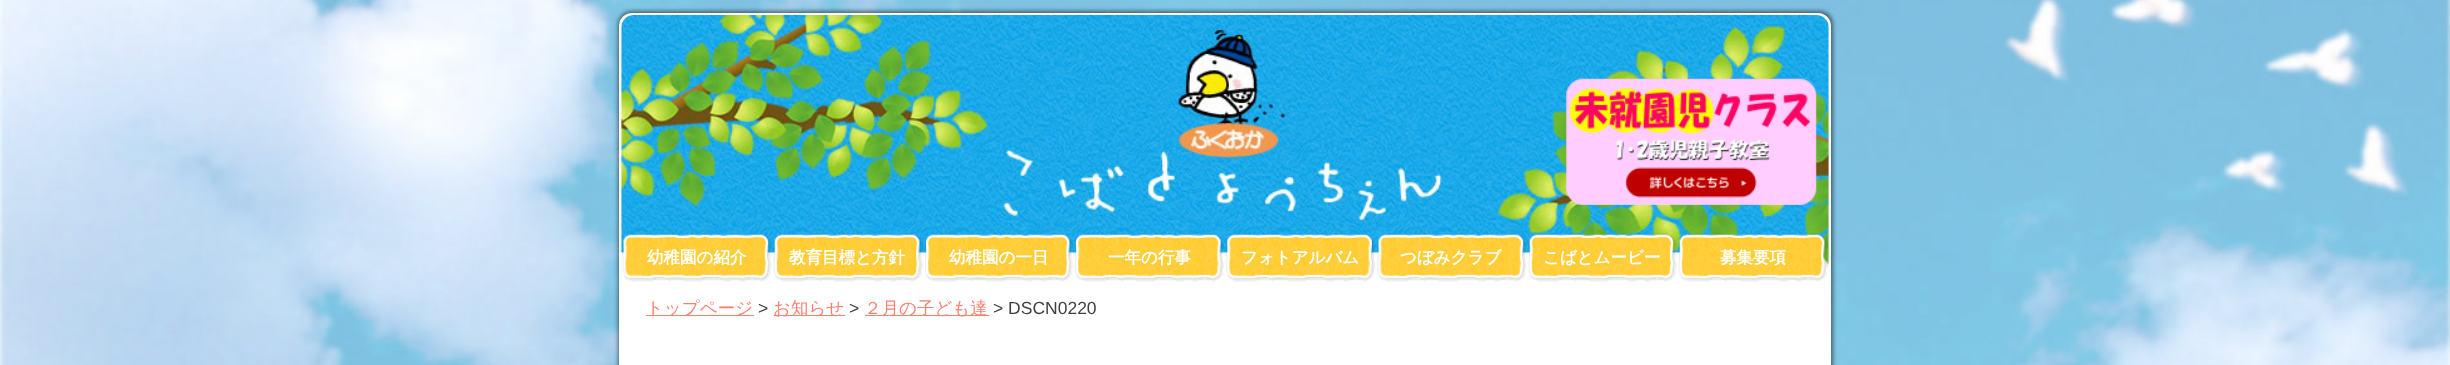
<svg xmlns="http://www.w3.org/2000/svg" width="2450" height="365" viewBox="0 0 2450 365">
  <rect width="100%" height="100%" fill="rgb(255,255,255)"/>
  <image x="0" y="0" width="2450" height="365" href="pic1.png"/>
  <rect x="618" y="11" width="1215" height="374" rx="14" fill="rgba(0,0,0,0.5)" filter="blur(2px)"/>
  <rect x="620.5" y="14.5" width="1209" height="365" rx="11.5" fill="rgb(255,255,255)" stroke="rgb(255,255,255)" stroke-width="3"/>
  <image x="621" y="15" width="1208" height="255" href="pic2.png"/>
  <image x="1566" y="78" width="251" height="127" href="pic3.png"/>
  <image x="622" y="233" width="150" height="49" href="pic4.png"/>
  <text x="647" y="263" font-family="WenQuanYi Zen Hei" font-size="16.5" font-weight="bold" fill="rgb(255,255,255)">幼稚園の紹介</text>
  <image x="773" y="233" width="150" height="49" href="pic5.png"/>
  <text x="789" y="263" font-family="WenQuanYi Zen Hei" font-size="16.5" font-weight="bold" fill="rgb(255,255,255)">教育目標と方針</text>
  <image x="925" y="233" width="148" height="49" href="pic6.png"/>
  <text x="949" y="263" font-family="WenQuanYi Zen Hei" font-size="16.5" font-weight="bold" fill="rgb(255,255,255)">幼稚園の一日</text>
  <image x="1075" y="233" width="149" height="49" href="pic7.png"/>
  <text x="1108" y="263" font-family="WenQuanYi Zen Hei" font-size="16.5" font-weight="bold" fill="rgb(255,255,255)">一年の行事</text>
  <image x="1226" y="233" width="149" height="49" href="pic8.png"/>
  <text x="1241" y="263" font-family="WenQuanYi Zen Hei" font-size="16.5" font-weight="bold" fill="rgb(255,255,255)">フォトアルバム</text>
  <image x="1377" y="233" width="150" height="49" href="pic9.png"/>
  <text x="1400" y="263" font-family="WenQuanYi Zen Hei" font-size="16.5" font-weight="bold" fill="rgb(255,255,255)">つぼみクラブ</text>
  <image x="1528" y="233" width="149" height="49" href="pic10.png"/>
  <text x="1543" y="263" font-family="WenQuanYi Zen Hei" font-size="16.5" font-weight="bold" fill="rgb(255,255,255)">こばとムービー</text>
  <image x="1678" y="233" width="150" height="49" href="pic11.png"/>
  <text x="1720" y="263" font-family="WenQuanYi Zen Hei" font-size="16.5" font-weight="bold" fill="rgb(255,255,255)">募集要項</text>
  <rect x="646" y="315" width="108" height="1" fill="rgb(250,128,114)"/>
  <text x="646" y="314" font-family="WenQuanYi Zen Hei" font-size="17.5" font-weight="500" fill="rgb(250,128,114)">トップページ</text>
  <text x="758" y="314" font-family="Liberation Sans" font-size="17.5" fill="rgb(64,64,64)">&gt;</text>
  <rect x="774" y="315" width="71" height="1" fill="rgb(250,128,114)"/>
  <text x="773" y="314" font-family="WenQuanYi Zen Hei" font-size="17.5" font-weight="500" fill="rgb(250,128,114)">お知らせ</text>
  <text x="849" y="314" font-family="Liberation Sans" font-size="17.5" fill="rgb(64,64,64)">&gt;</text>
  <rect x="865" y="315" width="124" height="1" fill="rgb(250,128,114)"/>
  <text x="864" y="314" font-family="WenQuanYi Zen Hei" font-size="17.5" font-weight="500" fill="rgb(250,128,114)">２月の子ども達</text>
  <text x="993" y="314" font-family="Liberation Sans" font-size="17.5" fill="rgb(64,64,64)">&gt; DSCN0220</text>
</svg>
